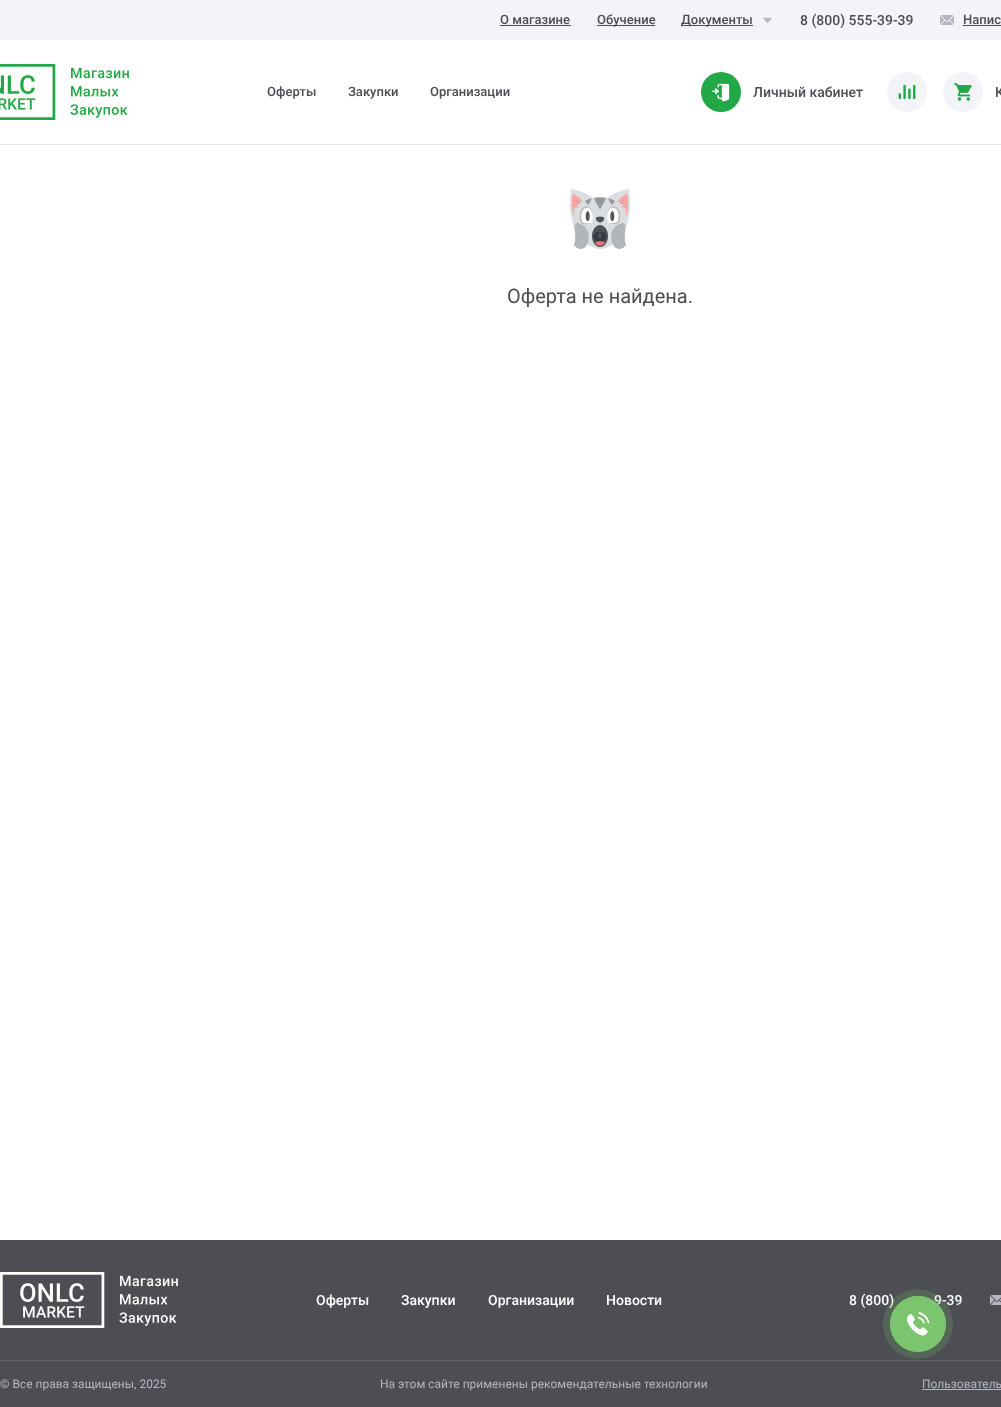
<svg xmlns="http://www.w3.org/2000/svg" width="1001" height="1407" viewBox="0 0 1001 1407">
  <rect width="100%" height="100%" fill="rgb(255,255,255)"/>
  <rect x="0" y="0" width="1001" height="40" fill="rgb(243,244,247)"/>
  <text x="500" y="24" font-family="Roboto" font-size="13" font-weight="500" fill="rgb(76,78,83)">О магазине</text>
  <rect x="500" y="25" width="71" height="1" fill="rgb(76,78,83)"/>
  <rect x="597" y="25" width="58" height="1" fill="rgb(76,78,83)"/>
  <text x="597" y="24" font-family="Roboto" font-size="13" font-weight="500" fill="rgb(76,78,83)">Обучение</text>
  <rect x="681" y="25" width="72" height="1" fill="rgb(76,78,83)"/>
  <text x="681" y="24" font-family="Roboto" font-size="13" font-weight="500" fill="rgb(76,78,83)">Документы</text>
  <image x="763" y="17" width="9" height="7" href="pic1.png"/>
  <text x="800" y="25" font-family="Roboto" font-size="14" font-weight="500" fill="rgb(76,78,83)">8 (800) 555-39-39</text>
  <image x="940" y="15" width="14" height="10" href="pic2.png"/>
  <text x="963" y="24" font-family="Roboto" font-size="13" font-weight="500" fill="rgb(76,78,83)">Напис</text>
  <rect x="963" y="25" width="38" height="1" fill="rgb(76,78,83)"/>
  <rect x="0" y="144" width="1001" height="1" fill="rgb(230,232,238)"/>
  <image x="0" y="64" width="129" height="56" href="pic3.png"/>
  <g font-family="Roboto" font-size="13" font-weight="500" fill="rgb(76,78,83)">
    <text x="267" y="96">Оферты</text>
    <text x="348" y="96">Закупки</text>
    <text x="430" y="96">Организации</text>
  </g>
  <circle cx="721" cy="92" r="20" fill="rgb(34,168,71)"/>
  <image x="711" y="83" width="19" height="19" href="pic4.png"/>
  <text x="753" y="97" font-family="Roboto" font-size="14" font-weight="500" fill="rgb(76,78,83)">Личный кабинет</text>
  <circle cx="907" cy="92" r="20" fill="rgb(243,244,247)"/>
  <image x="898" y="84" width="18" height="16" href="pic5.png"/>
  <circle cx="963" cy="92" r="20" fill="rgb(243,244,247)"/>
  <image x="954" y="83" width="18" height="18" href="pic6.png"/>
  <text x="995" y="97" font-family="Roboto" font-size="14" font-weight="500" fill="rgb(76,78,83)">К</text>
  <image x="570" y="189" width="60" height="60" href="pic7.png"/>
  <text x="507" y="303" font-family="Roboto" font-size="20" fill="rgb(76,78,83)">Оферта не найдена.</text>
  <rect x="0" y="1240" width="1001" height="167" fill="rgb(76,78,83)"/>
  <rect x="0" y="1360" width="1001" height="1" fill="rgb(97,99,105)"/>
  <image x="0" y="1272" width="178" height="56" href="pic8.png"/>
  <g font-family="Roboto" font-size="14" font-weight="500" fill="rgb(255,255,255)">
    <text x="316" y="1305">Оферты</text>
    <text x="401" y="1305">Закупки</text>
    <text x="488" y="1305">Организации</text>
    <text x="606" y="1305">Новости</text>
    <text x="849" y="1305">8 (800)</text>
    <text x="934" y="1305">9-39</text>
  </g>
  <image x="990" y="1295" width="11" height="10" href="pic9.png"/>
  <g font-family="Roboto" font-size="12" fill="rgb(179,183,193)">
    <text x="0" y="1388">© Все права защищены, 2025</text>
    <text x="380" y="1388">На этом сайте применены рекомендательные технологии</text>
    <text x="922" y="1388">Пользователь</text>
  </g>
  <rect x="922" y="1389" width="79" height="1" fill="rgb(179,183,193)"/>
  <circle cx="918" cy="1324" r="35" fill="rgba(123,197,111,0.2)"/>
  <circle cx="918" cy="1324" r="27.6" fill="none" stroke="rgb(123,197,111)" stroke-width="0.8"/>
  <circle cx="918" cy="1324" r="28" fill="rgb(123,197,111)"/>
  <image x="906" y="1312" width="24" height="24" href="pic10.png"/>
</svg>
